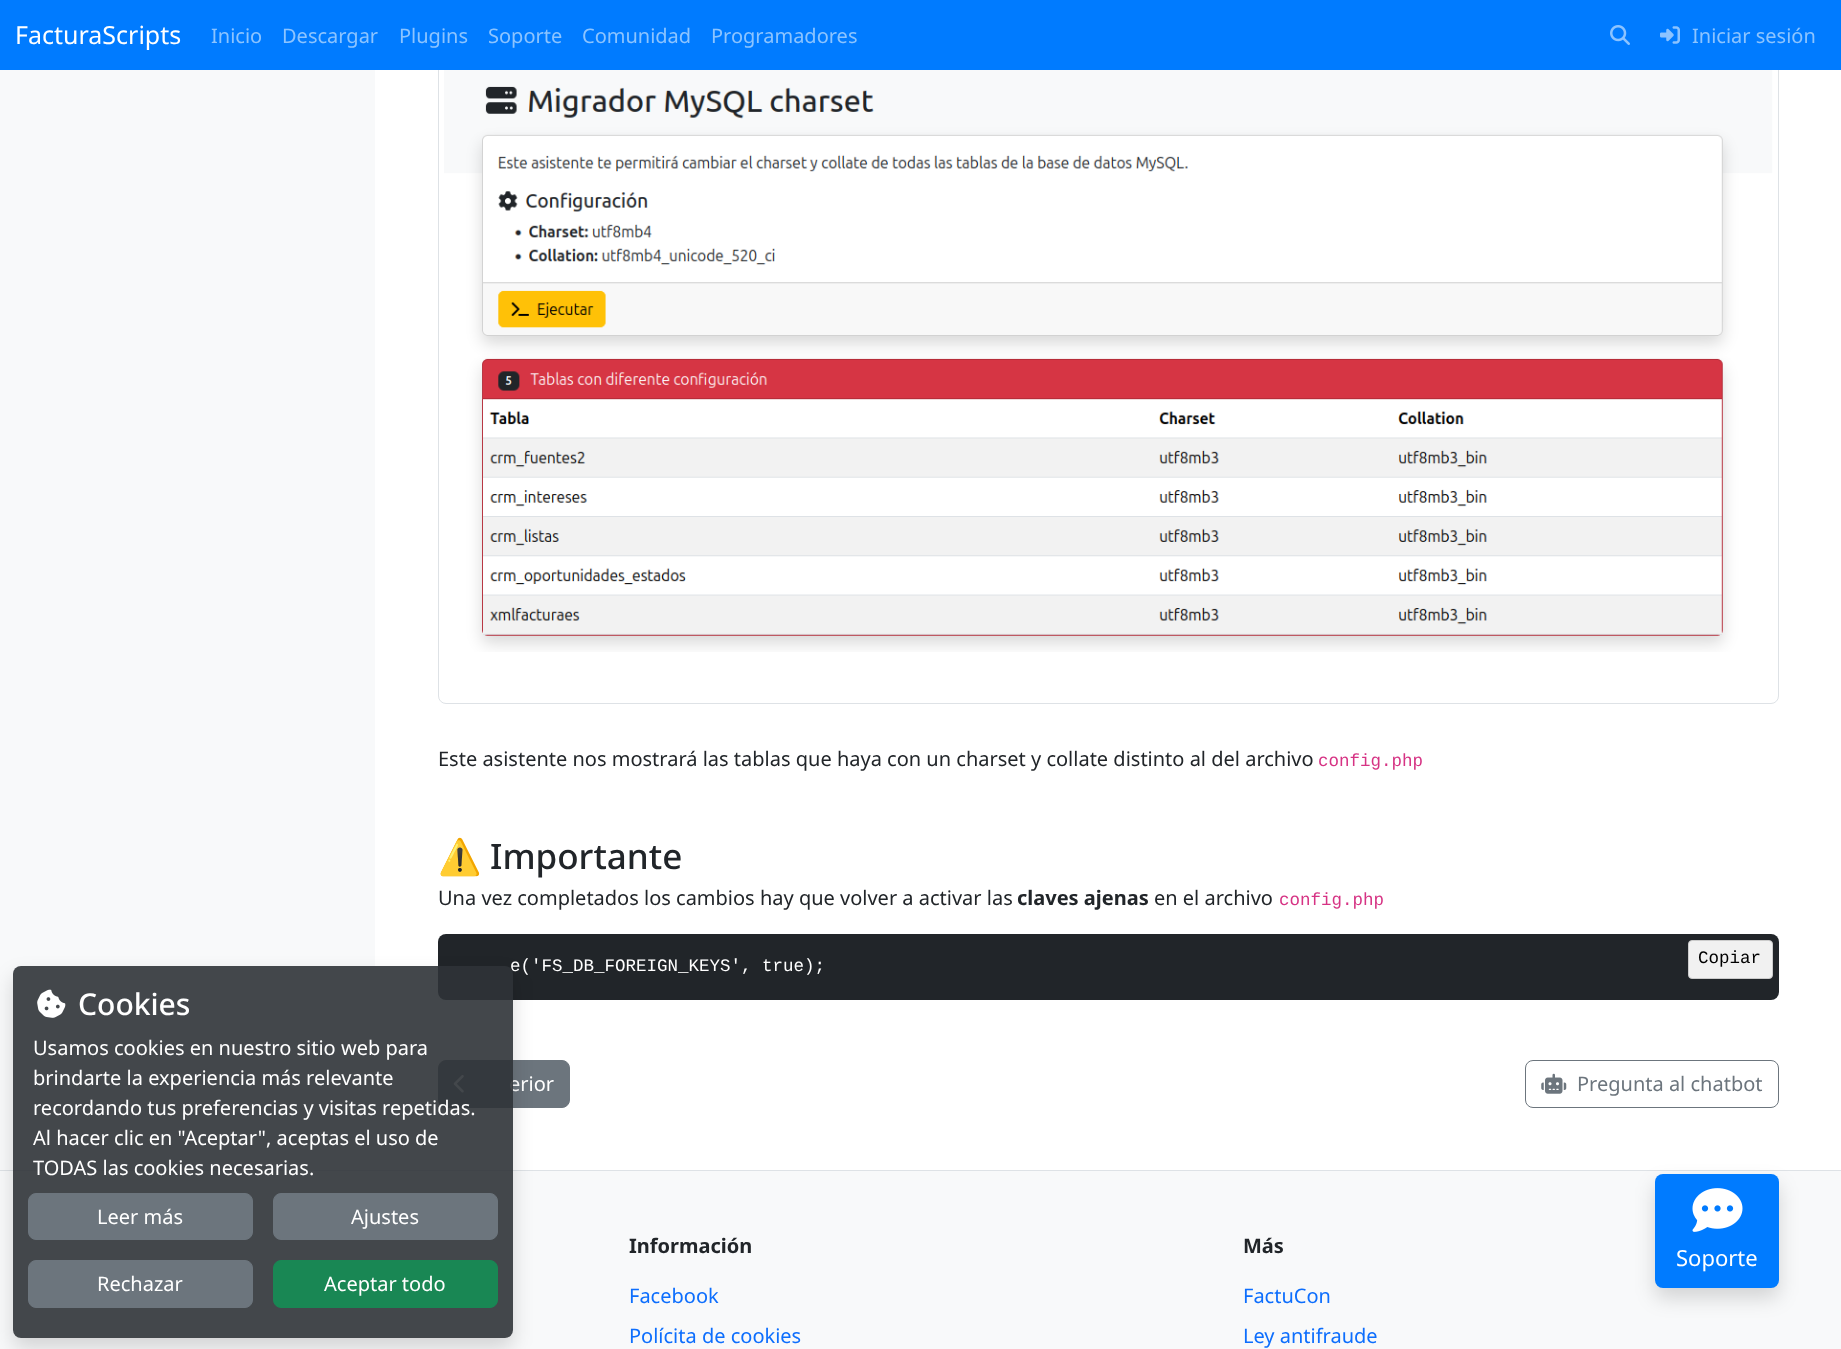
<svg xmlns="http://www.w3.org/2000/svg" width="1841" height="1349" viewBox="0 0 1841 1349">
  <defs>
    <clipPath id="clip1"><path d="M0 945H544V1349H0ZM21 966H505C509.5 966 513 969.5 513 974V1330C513 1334.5 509.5 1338 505 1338H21C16.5 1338 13 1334.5 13 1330V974C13 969.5 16.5 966 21 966Z" clip-rule="evenodd"/></clipPath>
  </defs>
  <rect width="100%" height="100%" fill="rgb(255,255,255)"/>
  <rect x="438.5" y="11.5" width="1340" height="692" rx="7.5" fill="none" stroke="rgb(222,226,230)"/>
  <rect x="0" y="0" width="1841" height="70" fill="rgb(0,123,255)"/>
  <text x="15" y="44" font-family="Noto Sans" font-size="25" fill="rgb(255,255,255)">FacturaScripts</text>
  <g font-family="Noto Sans" font-size="20" fill="rgb(140,196,255)">
    <text x="211" y="43">Inicio</text>
    <text x="282" y="43">Descargar</text>
    <text x="399" y="43">Plugins</text>
    <text x="488" y="43">Soporte</text>
    <text x="582" y="43">Comunidad</text>
    <text x="711" y="43">Programadores</text>
  </g>
  <image x="1610" y="25" width="20" height="20" href="pic1.png"/>
  <image x="1660" y="26" width="20" height="18" href="pic2.png"/>
  <text x="1692" y="43" font-family="Noto Sans" font-size="20" fill="rgb(140,196,255)">Iniciar sesión</text>
  <rect x="0" y="70" width="375" height="1100" fill="rgb(248,249,250)"/>
  <image x="443" y="70" width="1330" height="582" href="pic3.png"/>
  <text x="438" y="766" font-family="Noto Sans" font-size="20" fill="rgb(33,37,41)">Este asistente nos mostrará las tablas que haya con un charset y collate distinto al del archivo</text>
  <text x="1318" y="766" font-family="Liberation Mono" font-size="17.5" fill="rgb(214,51,132)">config.php</text>
  <text x="438" y="869" font-family="Noto Color Emoji" font-size="35" fill="rgb(33,37,41)">⚠️</text>
  <text x="490" y="869" font-family="Noto Sans" font-size="35" font-weight="500" fill="rgb(33,37,41)">Importante</text>
  <text x="438" y="905" font-family="Noto Sans" font-size="20" fill="rgb(33,37,41)">Una vez completados los cambios hay que volver a activar las</text>
  <text x="1017" y="905" font-family="Noto Sans" font-size="20" font-weight="bold" fill="rgb(33,37,41)">claves ajenas</text>
  <text x="1154" y="905" font-family="Noto Sans" font-size="20" fill="rgb(33,37,41)">en el archivo</text>
  <text x="1279" y="905" font-family="Liberation Mono" font-size="17.5" fill="rgb(214,51,132)">config.php</text>
  <rect x="438" y="934" width="1341" height="66" rx="8" fill="rgb(33,37,41)"/>
  <text x="510" y="971" font-family="Liberation Mono" font-size="17.5" fill="rgb(255,255,255)">e('FS_DB_FOREIGN_KEYS', true);</text>
  <rect x="1688.5" y="940.5" width="84" height="38" rx="3.5" fill="rgb(241,241,241)" stroke="rgb(204,204,204)"/>
  <text x="1698" y="963" font-family="Liberation Mono" font-size="17.5" fill="rgb(0,0,0)">Copiar</text>
  <rect x="438.5" y="1060.5" width="131" height="47" rx="7.5" fill="rgb(108,117,125)" stroke="rgb(108,117,125)"/>
  <image x="453" y="1075" width="11" height="18" href="pic4.png"/>
  <text x="509" y="1091" font-family="Noto Sans" font-size="20" fill="rgb(255,255,255)">erior</text>
  <rect x="1525.5" y="1060.5" width="253" height="47" rx="7.5" fill="none" stroke="rgb(108,117,125)"/>
  <image x="1541" y="1073" width="26" height="21" href="pic5.png"/>
  <text x="1577" y="1091" font-family="Noto Sans" font-size="20" fill="rgb(108,117,125)">Pregunta al chatbot</text>
  <rect x="0" y="1171" width="1841" height="178" fill="rgb(248,249,250)"/>
  <rect x="0" y="1170" width="1841" height="1" fill="rgb(222,226,230)"/>
  <g clip-path="url(#clip1)">
    <rect x="13" y="976" width="500" height="372" rx="8" fill="rgba(0,0,0,0.15)" filter="blur(10px)"/>
  </g>
  <rect x="13" y="966" width="500" height="372" rx="8" fill="rgba(47,51,55,0.9)"/>
  <image x="37" y="989" width="29" height="29" href="pic6.png"/>
  <text x="78" y="1015" font-family="Noto Sans" font-size="30" font-weight="500" fill="rgb(255,255,255)">Cookies</text>
  <g font-family="Noto Sans" font-size="20" fill="rgb(255,255,255)">
    <text>
      <tspan x="33" y="1055">Usamos cookies en nuestro sitio web para</tspan>
      <tspan x="33" y="1085">brindarte la experiencia más relevante</tspan>
      <tspan x="33" y="1115">recordando tus preferencias y visitas repetidas.</tspan>
      <tspan x="33" y="1145">Al hacer clic en "Aceptar", aceptas el uso de</tspan>
      <tspan x="33" y="1175">TODAS las cookies necesarias.</tspan>
    </text>
  </g>
  <rect x="28.5" y="1193.5" width="224" height="46" rx="7.5" fill="rgb(108,117,125)" stroke="rgb(108,117,125)"/>
  <text x="97" y="1224" font-family="Noto Sans" font-size="20" fill="rgb(255,255,255)">Leer más</text>
  <rect x="273.5" y="1193.5" width="224" height="46" rx="7.5" fill="rgb(108,117,125)" stroke="rgb(108,117,125)"/>
  <text x="351" y="1224" font-family="Noto Sans" font-size="20" fill="rgb(255,255,255)">Ajustes</text>
  <rect x="28.5" y="1260.5" width="224" height="47" rx="7.5" fill="rgb(108,117,125)" stroke="rgb(108,117,125)"/>
  <text x="97" y="1291" font-family="Noto Sans" font-size="20" fill="rgb(255,255,255)">Rechazar</text>
  <rect x="273.5" y="1260.5" width="224" height="47" rx="7.5" fill="rgb(25,135,84)" stroke="rgb(25,135,84)"/>
  <text x="324" y="1291" font-family="Noto Sans" font-size="20" fill="rgb(255,255,255)">Aceptar todo</text>
  <text x="629" y="1253" font-family="Noto Sans" font-size="20" font-weight="bold" fill="rgb(33,37,41)">Información</text>
  <g font-family="Noto Sans" font-size="20" fill="rgb(13,110,253)">
    <text x="629" y="1303">Facebook</text>
    <text x="629" y="1343">Polícita de cookies</text>
  </g>
  <text x="1243" y="1253" font-family="Noto Sans" font-size="20" font-weight="bold" fill="rgb(33,37,41)">Más</text>
  <g font-family="Noto Sans" font-size="20" fill="rgb(13,110,253)">
    <text x="1243" y="1303">FactuCon</text>
    <text x="1243" y="1343">Ley antifraude</text>
  </g>
  <rect x="1655" y="1184" width="124" height="114" rx="8" fill="rgba(0,0,0,0.15)" filter="blur(10px)"/>
  <rect x="1655" y="1174" width="124" height="114" rx="8" fill="rgb(0,123,255)"/>
  <image x="1692" y="1188" width="51" height="44" href="pic7.png"/>
  <text x="1676" y="1266" font-family="Noto Sans" font-size="22" fill="rgb(255,255,255)">Soporte</text>
</svg>
